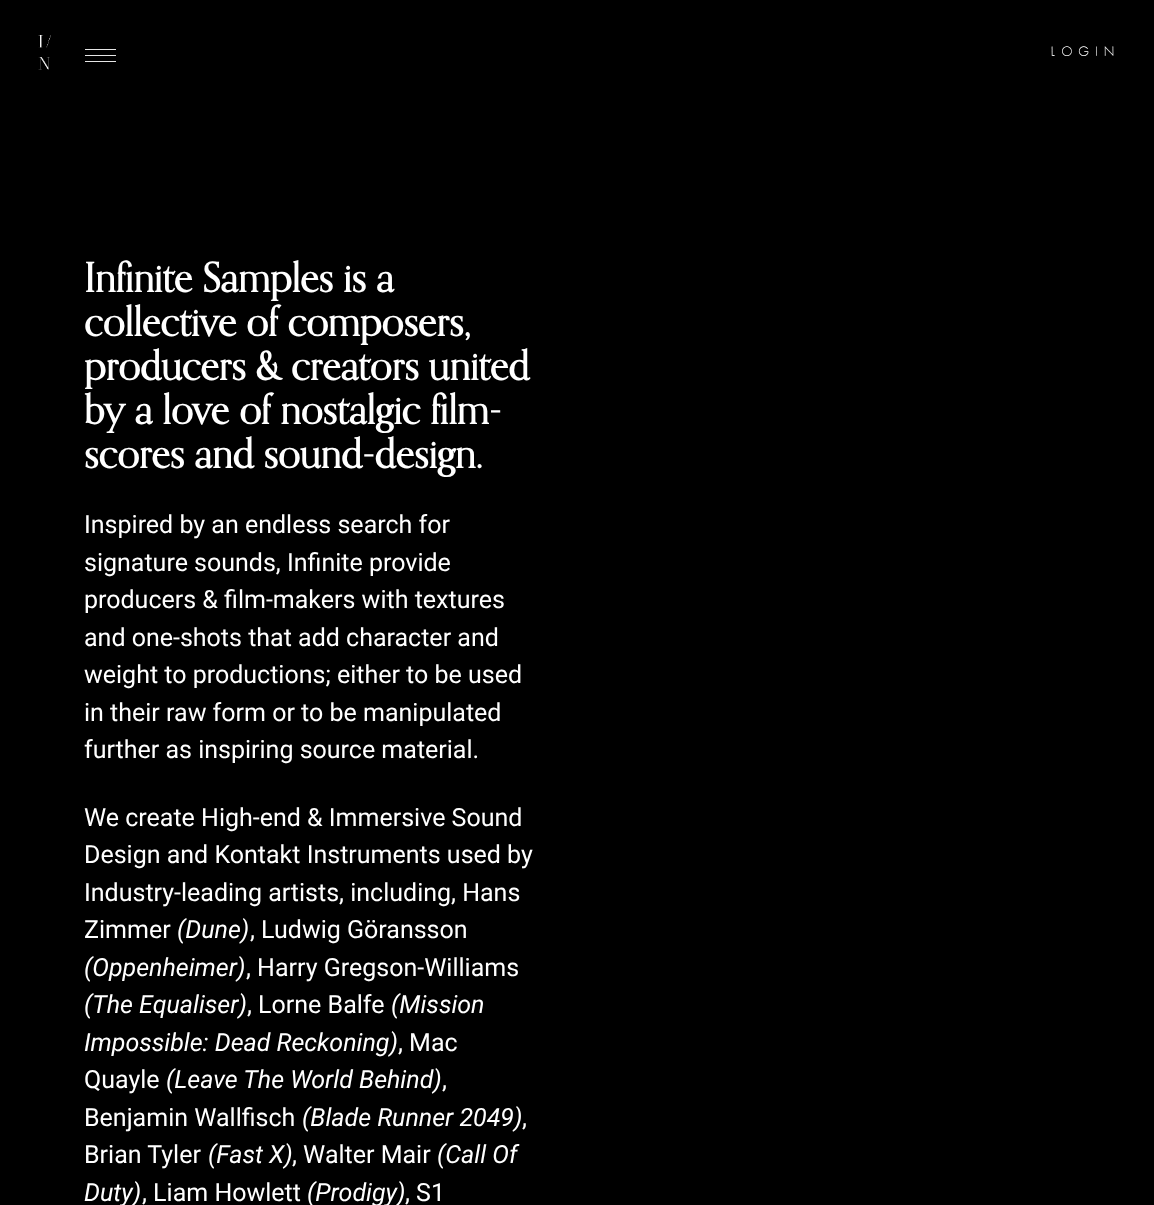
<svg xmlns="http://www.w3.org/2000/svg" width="1154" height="1205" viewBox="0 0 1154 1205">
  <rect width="100%" height="100%" fill="rgb(0,0,0)"/>
  <image x="38" y="35" width="13" height="35" href="pic1.png"/>
  <rect x="85" y="49" width="31" height="1" fill="rgb(230,230,230)"/>
  <rect x="85" y="55" width="31" height="1" fill="rgb(230,230,230)"/>
  <rect x="85" y="61" width="31" height="1" fill="rgb(230,230,230)"/>
  <text x="1051" y="56" font-family="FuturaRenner" font-size="13.75" font-weight="300" letter-spacing="6.25" fill="rgb(255,255,255)">LOGIN</text>
  <g font-family="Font" font-size="40" font-weight="bold" fill="rgb(255,255,255)">
    <text>
      <tspan x="84" y="292">Infinite Samples is a</tspan>
      <tspan x="84" y="336">collective of composers,</tspan>
      <tspan x="84" y="380">producers &amp; creators united</tspan>
      <tspan x="84" y="424">by a love of nostalgic film-</tspan>
      <tspan x="84" y="468">scores and sound-design.</tspan>
    </text>
  </g>
  <g font-family="Roboto" font-size="25" fill="rgb(255,255,255)">
    <text>
      <tspan x="84" y="533">Inspired by an endless search for</tspan>
      <tspan x="84" y="571">signature sounds, Infinite provide</tspan>
      <tspan x="84" y="608">producers &amp; film-makers with textures</tspan>
      <tspan x="84" y="646">and one-shots that add character and</tspan>
      <tspan x="84" y="683">weight to productions; either to be used</tspan>
      <tspan x="84" y="721">in their raw form or to be manipulated</tspan>
      <tspan x="84" y="758">further as inspiring source material.</tspan>
    </text>
    <text>
      <tspan x="84" y="826">We create High-end &amp; Immersive Sound</tspan>
      <tspan x="84" y="863">Design and Kontakt Instruments used by</tspan>
      <tspan x="84" y="901">Industry-leading artists, including, Hans</tspan>
      <tspan x="84" y="938">Zimmer</tspan>
    </text>
  </g>
  <text x="177" y="938" font-family="Roboto" font-size="25" font-style="italic" fill="rgb(255,255,255)">(Dune)</text>
  <text x="250" y="938" font-family="Roboto" font-size="25" fill="rgb(255,255,255)">, Ludwig Göransson</text>
  <text x="84" y="976" font-family="Roboto" font-size="25" font-style="italic" fill="rgb(255,255,255)">(Oppenheimer)</text>
  <text x="246" y="976" font-family="Roboto" font-size="25" fill="rgb(255,255,255)">, Harry Gregson-Williams</text>
  <text x="84" y="1013" font-family="Roboto" font-size="25" font-style="italic" fill="rgb(255,255,255)">(The Equaliser)</text>
  <text x="247" y="1013" font-family="Roboto" font-size="25" fill="rgb(255,255,255)">, Lorne Balfe</text>
  <g font-family="Roboto" font-size="25" font-style="italic" fill="rgb(255,255,255)">
    <text x="391" y="1013">(Mission</text>
    <text x="84" y="1051">Impossible: Dead Reckoning)</text>
  </g>
  <g font-family="Roboto" font-size="25" fill="rgb(255,255,255)">
    <text x="398" y="1051">, Mac</text>
    <text x="84" y="1088">Quayle</text>
  </g>
  <text x="166" y="1088" font-family="Roboto" font-size="25" font-style="italic" fill="rgb(255,255,255)">(Leave The World Behind)</text>
  <g font-family="Roboto" font-size="25" fill="rgb(255,255,255)">
    <text x="442" y="1088">,</text>
    <text x="84" y="1126">Benjamin Wallfisch</text>
  </g>
  <text x="302" y="1126" font-family="Roboto" font-size="25" font-style="italic" fill="rgb(255,255,255)">(Blade Runner 2049)</text>
  <g font-family="Roboto" font-size="25" fill="rgb(255,255,255)">
    <text x="522" y="1126">,</text>
    <text x="84" y="1163">Brian Tyler</text>
  </g>
  <text x="208" y="1163" font-family="Roboto" font-size="25" font-style="italic" fill="rgb(255,255,255)">(Fast X)</text>
  <text x="292" y="1163" font-family="Roboto" font-size="25" fill="rgb(255,255,255)">, Walter Mair</text>
  <g font-family="Roboto" font-size="25" font-style="italic" fill="rgb(255,255,255)">
    <text x="437" y="1163">(Call Of</text>
    <text x="84" y="1201">Duty)</text>
  </g>
  <text x="142" y="1201" font-family="Roboto" font-size="25" fill="rgb(255,255,255)">, Liam Howlett</text>
  <text x="307" y="1201" font-family="Roboto" font-size="25" font-style="italic" fill="rgb(255,255,255)">(Prodigy)</text>
  <text x="405" y="1201" font-family="Roboto" font-size="25" fill="rgb(255,255,255)">, S1</text>
</svg>
